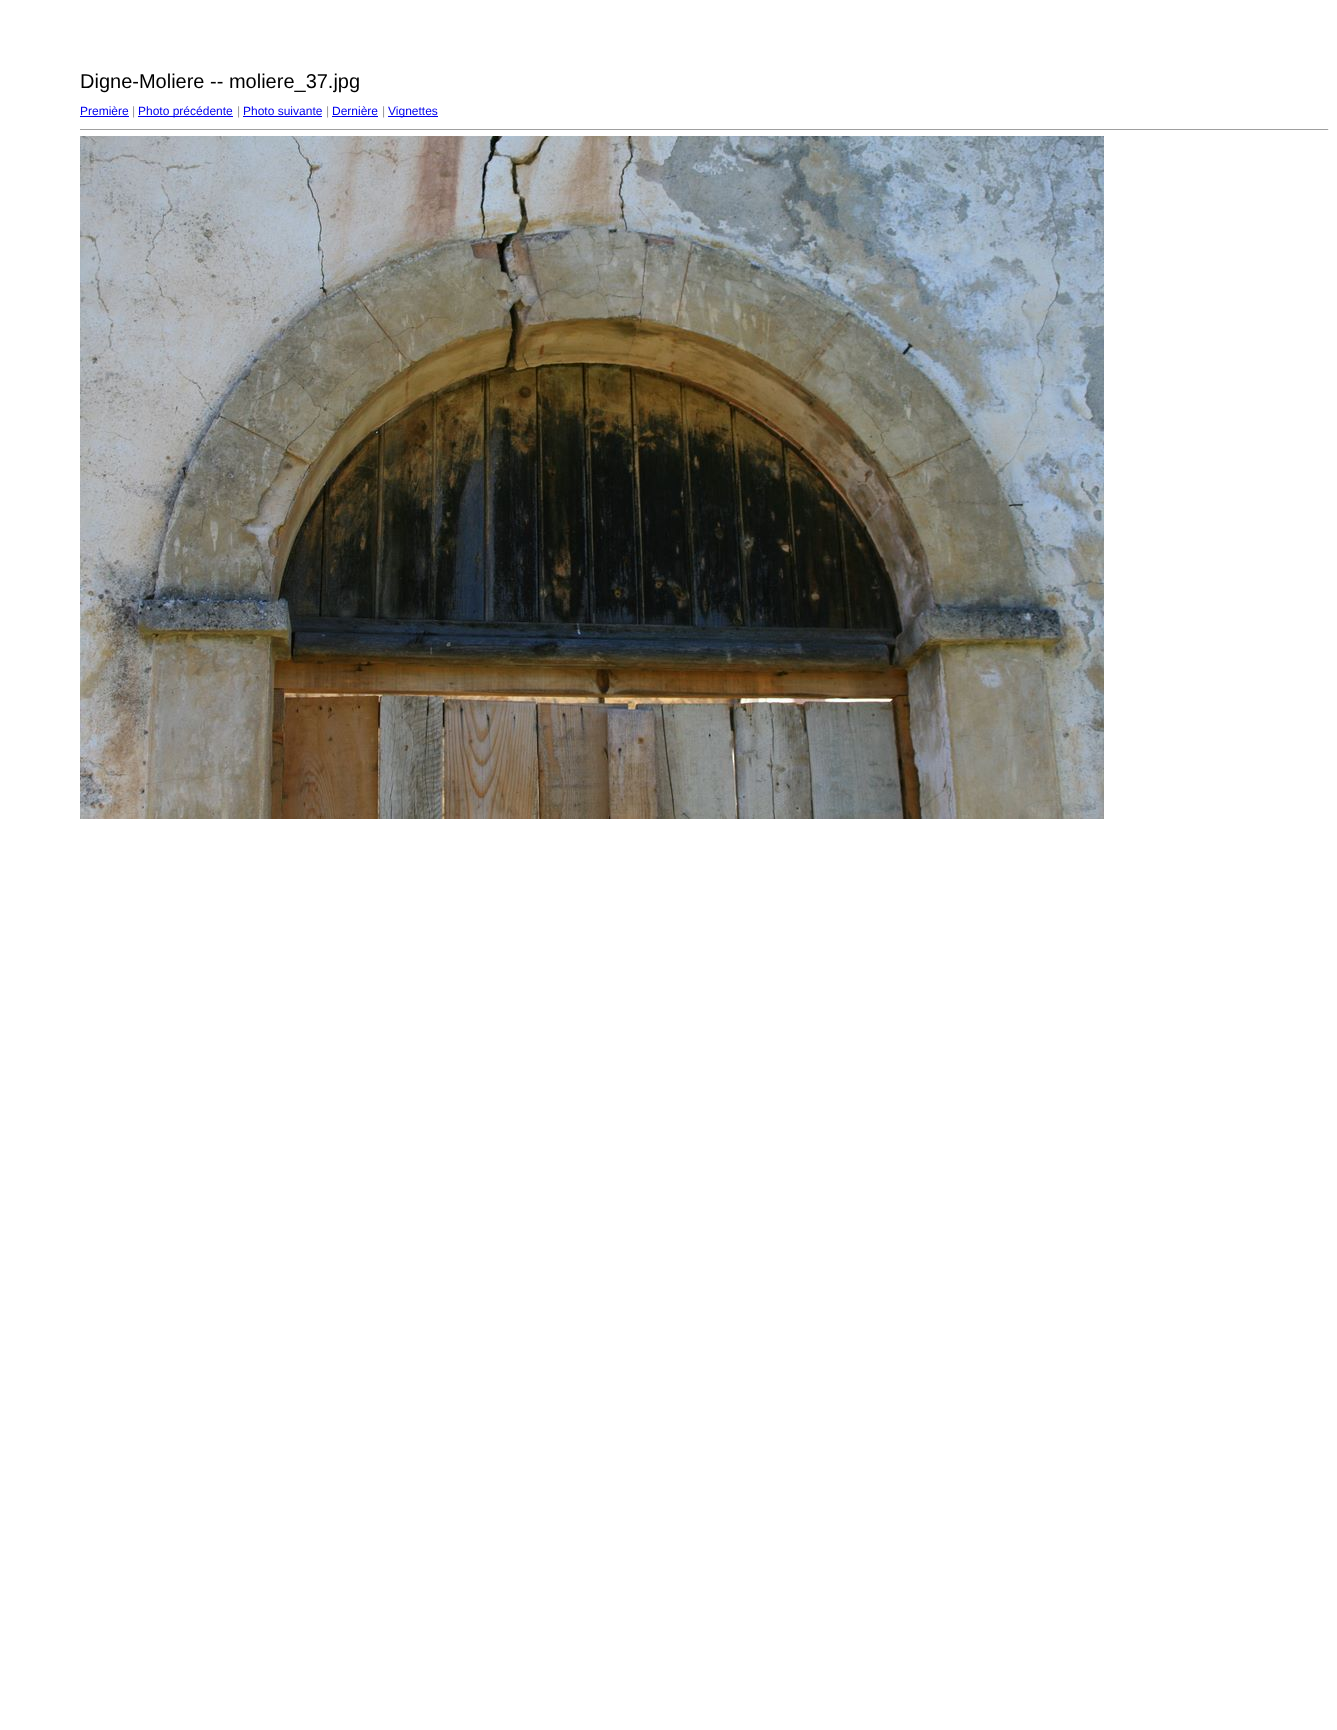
<svg xmlns="http://www.w3.org/2000/svg" width="1337" height="1730" viewBox="0 0 1337 1730">
  <rect width="100%" height="100%" fill="rgb(255,255,255)"/>
  <text x="80" y="88" font-family="Liberation Sans" font-size="20" fill="rgb(0,0,0)">Digne-Moliere -- moliere_37.jpg</text>
  <text x="80" y="115" font-family="Liberation Sans" font-size="12" fill="rgb(0,0,238)">Première</text>
  <rect x="80" y="116" width="49" height="1" fill="rgb(0,0,238)"/>
  <text x="132" y="115" font-family="Liberation Sans" font-size="12" fill="rgb(151,151,151)">|</text>
  <rect x="138" y="116" width="95" height="1" fill="rgb(0,0,238)"/>
  <text x="138" y="115" font-family="Liberation Sans" font-size="12" fill="rgb(0,0,238)">Photo précédente</text>
  <text x="237" y="115" font-family="Liberation Sans" font-size="12" fill="rgb(151,151,151)">|</text>
  <text x="243" y="115" font-family="Liberation Sans" font-size="12" fill="rgb(0,0,238)">Photo suivante</text>
  <rect x="243" y="116" width="79" height="1" fill="rgb(0,0,238)"/>
  <text x="326" y="115" font-family="Liberation Sans" font-size="12" fill="rgb(151,151,151)">|</text>
  <text x="332" y="115" font-family="Liberation Sans" font-size="12" fill="rgb(0,0,238)">Dernière</text>
  <rect x="332" y="116" width="46" height="1" fill="rgb(0,0,238)"/>
  <text x="382" y="115" font-family="Liberation Sans" font-size="12" fill="rgb(151,151,151)">|</text>
  <rect x="388" y="116" width="50" height="1" fill="rgb(0,0,238)"/>
  <text x="388" y="115" font-family="Liberation Sans" font-size="12" fill="rgb(0,0,238)">Vignettes</text>
  <rect x="80" y="129" width="1249" height="1" fill="rgb(159,159,159)"/>
  <rect x="1328" y="129" width="1" height="1" fill="rgb(238,238,238)"/>
  <image x="80" y="136" width="1024" height="683" href="pic1.png"/>
</svg>
